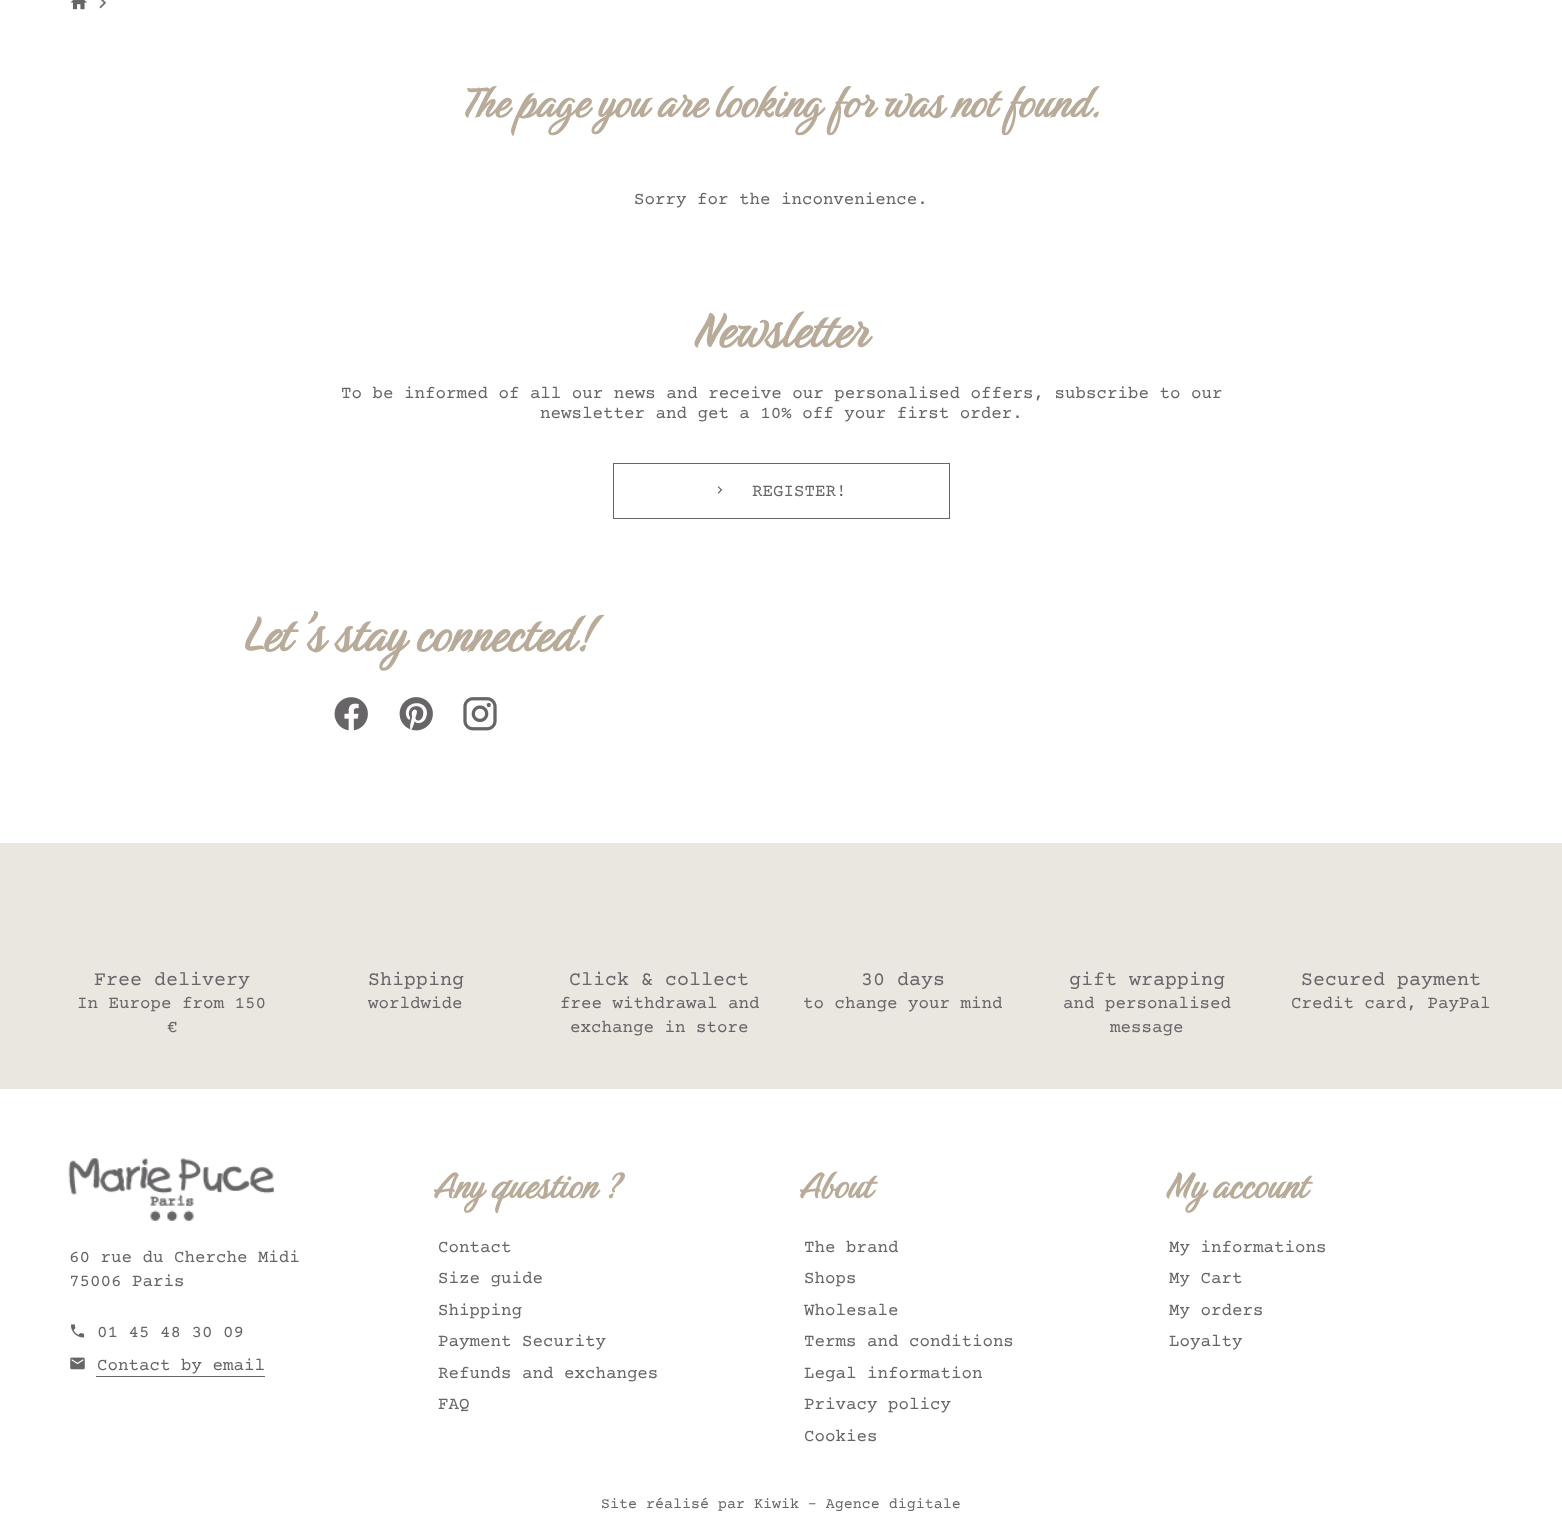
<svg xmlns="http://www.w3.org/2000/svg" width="1562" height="1513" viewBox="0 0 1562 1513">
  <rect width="100%" height="100%" fill="rgb(255,255,255)"/>
  <image x="70" y="0" width="17" height="10" href="pic1.png"/>
  <image x="99" y="0" width="8" height="9" href="pic2.png"/>
  <text x="461" y="117" font-family="Birthstone" font-size="52.5" font-weight="bold" fill="rgb(185,171,153)">The page you are looking for was not found.</text>
  <text x="634" y="204" font-family="Courier Prime" font-size="17.5" fill="rgb(104,101,104)">Sorry for the inconvenience.</text>
  <text x="694" y="347" font-family="Birthstone" font-size="60" font-weight="bold" fill="rgb(185,171,153)">Newsletter</text>
  <g font-family="Courier Prime" font-size="17.5" fill="rgb(104,101,104)">
    <text x="341" y="398">To be informed of all our news and receive our personalised offers, subscribe to our</text>
    <text x="540" y="418">newsletter and get a 10% off your first order.</text>
  </g>
  <rect x="613.5" y="463.5" width="336" height="55" fill="none" stroke="rgb(104,101,104)"/>
  <image x="717" y="486" width="6" height="8" href="pic3.png"/>
  <text x="752" y="496" font-family="Courier Prime" font-size="17.5" fill="rgb(104,101,104)">REGISTER!</text>
  <text x="243" y="651" font-family="Birthstone" font-size="60" font-weight="bold" fill="rgb(185,171,153)">Let's stay connected!</text>
  <image x="334" y="697" width="34" height="34" href="pic4.png"/>
  <image x="399" y="697" width="34" height="34" href="pic5.png"/>
  <image x="463" y="697" width="34" height="34" href="pic6.png"/>
  <rect x="0" y="843" width="1562" height="246" fill="rgb(234,230,224)"/>
  <text x="94" y="985" font-family="Courier Prime" font-size="20" fill="rgb(104,101,104)">Free delivery</text>
  <g font-family="Courier Prime" font-size="17.5" fill="rgb(104,101,104)">
    <text x="77" y="1008">In Europe from 150</text>
    <text x="167" y="1032">€</text>
  </g>
  <text x="368" y="985" font-family="Courier Prime" font-size="20" fill="rgb(104,101,104)">Shipping</text>
  <text x="368" y="1008" font-family="Courier Prime" font-size="17.5" fill="rgb(104,101,104)">worldwide</text>
  <text x="569" y="985" font-family="Courier Prime" font-size="20" fill="rgb(104,101,104)">Click &amp; collect</text>
  <g font-family="Courier Prime" font-size="17.5" fill="rgb(104,101,104)">
    <text x="560" y="1008">free withdrawal and</text>
    <text x="570" y="1032">exchange in store</text>
  </g>
  <text x="861" y="985" font-family="Courier Prime" font-size="20" fill="rgb(104,101,104)">30 days</text>
  <text x="803" y="1008" font-family="Courier Prime" font-size="17.5" fill="rgb(104,101,104)">to change your mind</text>
  <text x="1069" y="985" font-family="Courier Prime" font-size="20" fill="rgb(104,101,104)">gift wrapping</text>
  <g font-family="Courier Prime" font-size="17.5" fill="rgb(104,101,104)">
    <text x="1063" y="1008">and personalised</text>
    <text x="1110" y="1032">message</text>
  </g>
  <text x="1301" y="985" font-family="Courier Prime" font-size="20" fill="rgb(104,101,104)">Secured payment</text>
  <text x="1291" y="1008" font-family="Courier Prime" font-size="17.5" fill="rgb(104,101,104)">Credit card, PayPal</text>
  <image x="68" y="1158" width="206" height="63" href="pic7.png"/>
  <g font-family="Courier Prime" font-size="17.5" fill="rgb(104,101,104)">
    <text>
      <tspan x="69" y="1262">60 rue du Cherche Midi</tspan>
      <tspan x="69" y="1286">75006 Paris</tspan>
    </text>
  </g>
  <image x="71" y="1324" width="14" height="14" href="pic8.png"/>
  <text x="97" y="1337" font-family="Courier Prime" font-size="17.5" fill="rgb(104,101,104)">01 45 48 30 09</text>
  <image x="70" y="1357" width="15" height="13" href="pic9.png"/>
  <text x="97" y="1370" font-family="Courier Prime" font-size="17.5" fill="rgb(104,101,104)">Contact by email</text>
  <rect x="96" y="1376" width="169" height="1" fill="rgb(104,101,104)"/>
  <text x="434" y="1198" font-family="Birthstone" font-size="45" font-weight="bold" fill="rgb(185,171,153)">Any question ?</text>
  <g font-family="Courier Prime" font-size="17.5" fill="rgb(104,101,104)">
    <text>
      <tspan x="438" y="1252">Contact</tspan>
      <tspan x="438" y="1283">Size guide</tspan>
      <tspan x="438" y="1315">Shipping</tspan>
      <tspan x="438" y="1346">Payment Security</tspan>
      <tspan x="438" y="1378">Refunds and exchanges</tspan>
      <tspan x="438" y="1409">FAQ</tspan>
    </text>
  </g>
  <text x="800" y="1198" font-family="Birthstone" font-size="45" font-weight="bold" fill="rgb(185,171,153)">About</text>
  <g font-family="Courier Prime" font-size="17.5" fill="rgb(104,101,104)">
    <text>
      <tspan x="804" y="1252">The brand</tspan>
      <tspan x="804" y="1283">Shops</tspan>
      <tspan x="804" y="1315">Wholesale</tspan>
      <tspan x="804" y="1346">Terms and conditions</tspan>
      <tspan x="804" y="1378">Legal information</tspan>
      <tspan x="804" y="1409">Privacy policy</tspan>
      <tspan x="804" y="1441">Cookies</tspan>
    </text>
  </g>
  <text x="1166" y="1198" font-family="Birthstone" font-size="45" font-weight="bold" fill="rgb(185,171,153)">My account</text>
  <g font-family="Courier Prime" font-size="17.5" fill="rgb(104,101,104)">
    <text>
      <tspan x="1169" y="1252">My informations</tspan>
      <tspan x="1169" y="1283">My Cart</tspan>
      <tspan x="1169" y="1315">My orders</tspan>
      <tspan x="1169" y="1346">Loyalty</tspan>
    </text>
  </g>
  <text x="601" y="1508" font-family="Courier Prime" font-size="15" fill="rgb(104,101,104)">Site réalisé par Kiwik - Agence digitale</text>
</svg>
